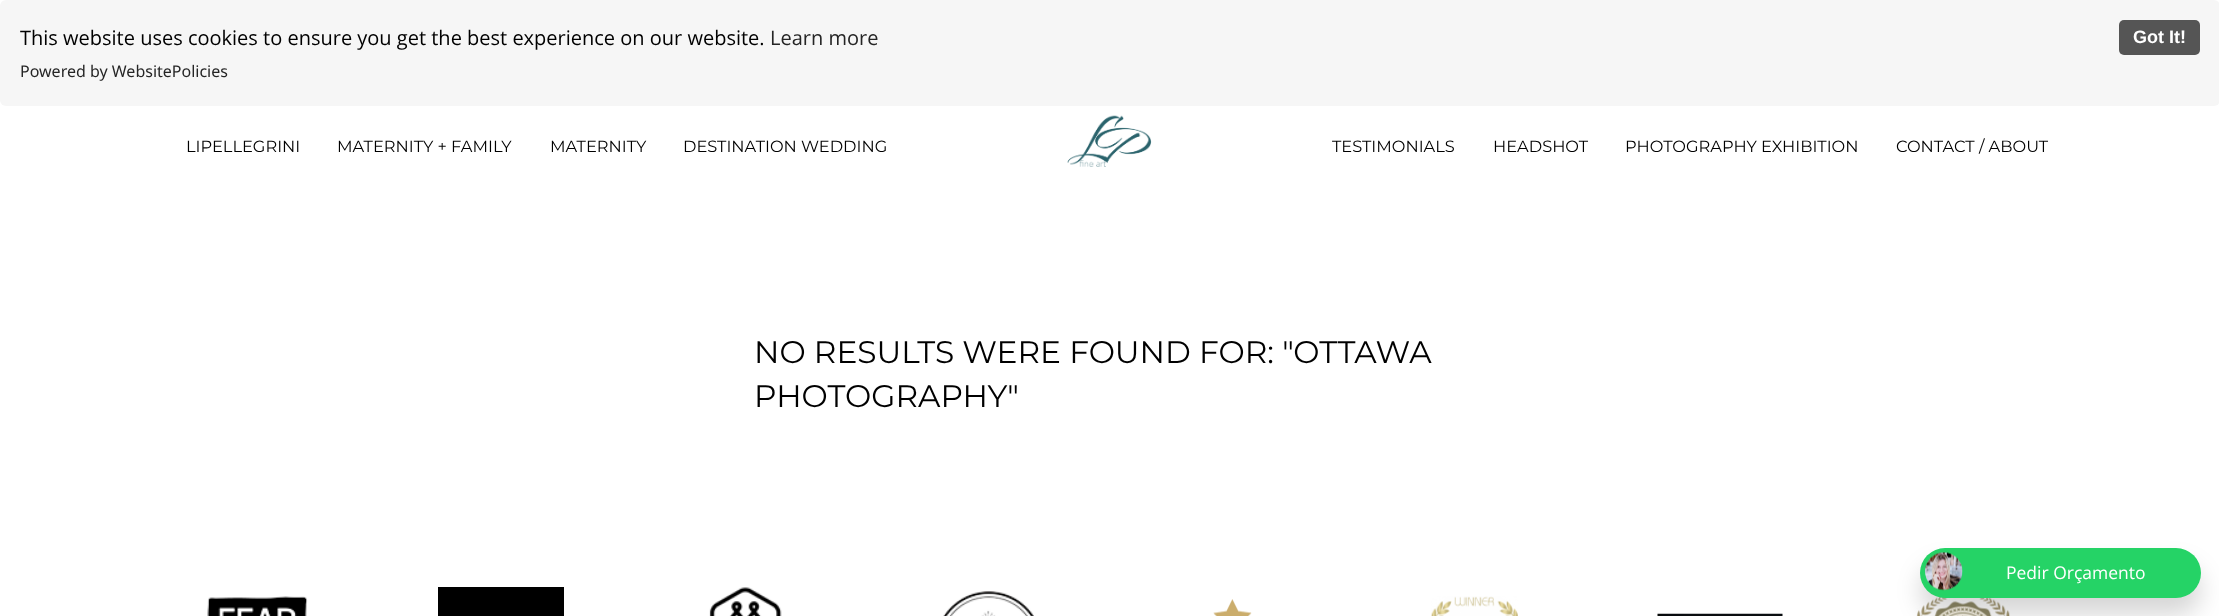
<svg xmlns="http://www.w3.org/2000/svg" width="2219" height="616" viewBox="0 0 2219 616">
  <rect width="100%" height="100%" fill="rgb(255,255,255)"/>
  <rect x="0" y="0" width="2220" height="106" rx="6" fill="rgb(246,246,246)"/>
  <text x="20" y="45" font-family="Open Sans" font-size="20" fill="rgb(0,0,0)">This website uses cookies to ensure you get the best experience on our website.</text>
  <text x="770" y="45" font-family="Open Sans" font-size="20" fill="rgb(37,37,37)">Learn more</text>
  <rect x="2119" y="20" width="81" height="35" rx="5" fill="rgb(85,85,85)"/>
  <text x="2133" y="43" font-family="Liberation Sans" font-size="18" font-weight="bold" fill="rgb(255,255,255)">Got It!</text>
  <text x="20" y="77" font-family="Noto Sans" font-size="16" fill="rgb(37,37,37)">Powered by WebsitePolicies</text>
  <g font-family="Montserrat" font-size="16.25" fill="rgb(0,0,0)">
    <text x="186" y="152">LIPELLEGRINI</text>
    <text x="337" y="152">MATERNITY + FAMILY</text>
    <text x="550" y="152">MATERNITY</text>
    <text x="683" y="152">DESTINATION WEDDING</text>
  </g>
  <image x="1067" y="115" width="85" height="52" href="pic1.png"/>
  <g font-family="Montserrat" font-size="16.25" fill="rgb(0,0,0)">
    <text x="1332" y="152">TESTIMONIALS</text>
    <text x="1493" y="152">HEADSHOT</text>
    <text x="1625" y="152">PHOTOGRAPHY EXHIBITION</text>
    <text x="1896" y="152">CONTACT / ABOUT</text>
  </g>
  <g font-family="Montserrat" font-size="31.25" fill="rgb(0,0,0)">
    <text>
      <tspan x="754" y="363">NO RESULTS WERE FOUND FOR: "OTTAWA</tspan>
      <tspan x="754" y="407">PHOTOGRAPHY"</tspan>
    </text>
  </g>
  <image x="207" y="596" width="101" height="20" href="pic2.png"/>
  <rect x="438" y="587" width="126" height="29" fill="rgb(0,0,0)"/>
  <image x="709" y="587" width="73" height="29" href="pic3.png"/>
  <image x="943" y="591" width="91" height="25" href="pic4.png"/>
  <image x="1213" y="599" width="39" height="17" href="pic5.png"/>
  <image x="1431" y="596" width="87" height="20" href="pic6.png"/>
  <image x="1657" y="613" width="126" height="3" href="pic7.png"/>
  <image x="1916" y="597" width="94" height="19" href="pic8.png"/>
  <rect x="1920" y="565" width="281" height="50" rx="25" fill="rgba(0,0,0,0.16)" filter="blur(12.5px)"/>
  <rect x="1920" y="548" width="281" height="50" rx="25" fill="rgb(37,211,102)"/>
  <image x="1925" y="552" width="38" height="39" href="pic9.png"/>
  <text x="2006" y="579" font-family="Open Sans" font-size="17.5" fill="rgb(255,255,255)">Pedir Orçamento</text>
</svg>
